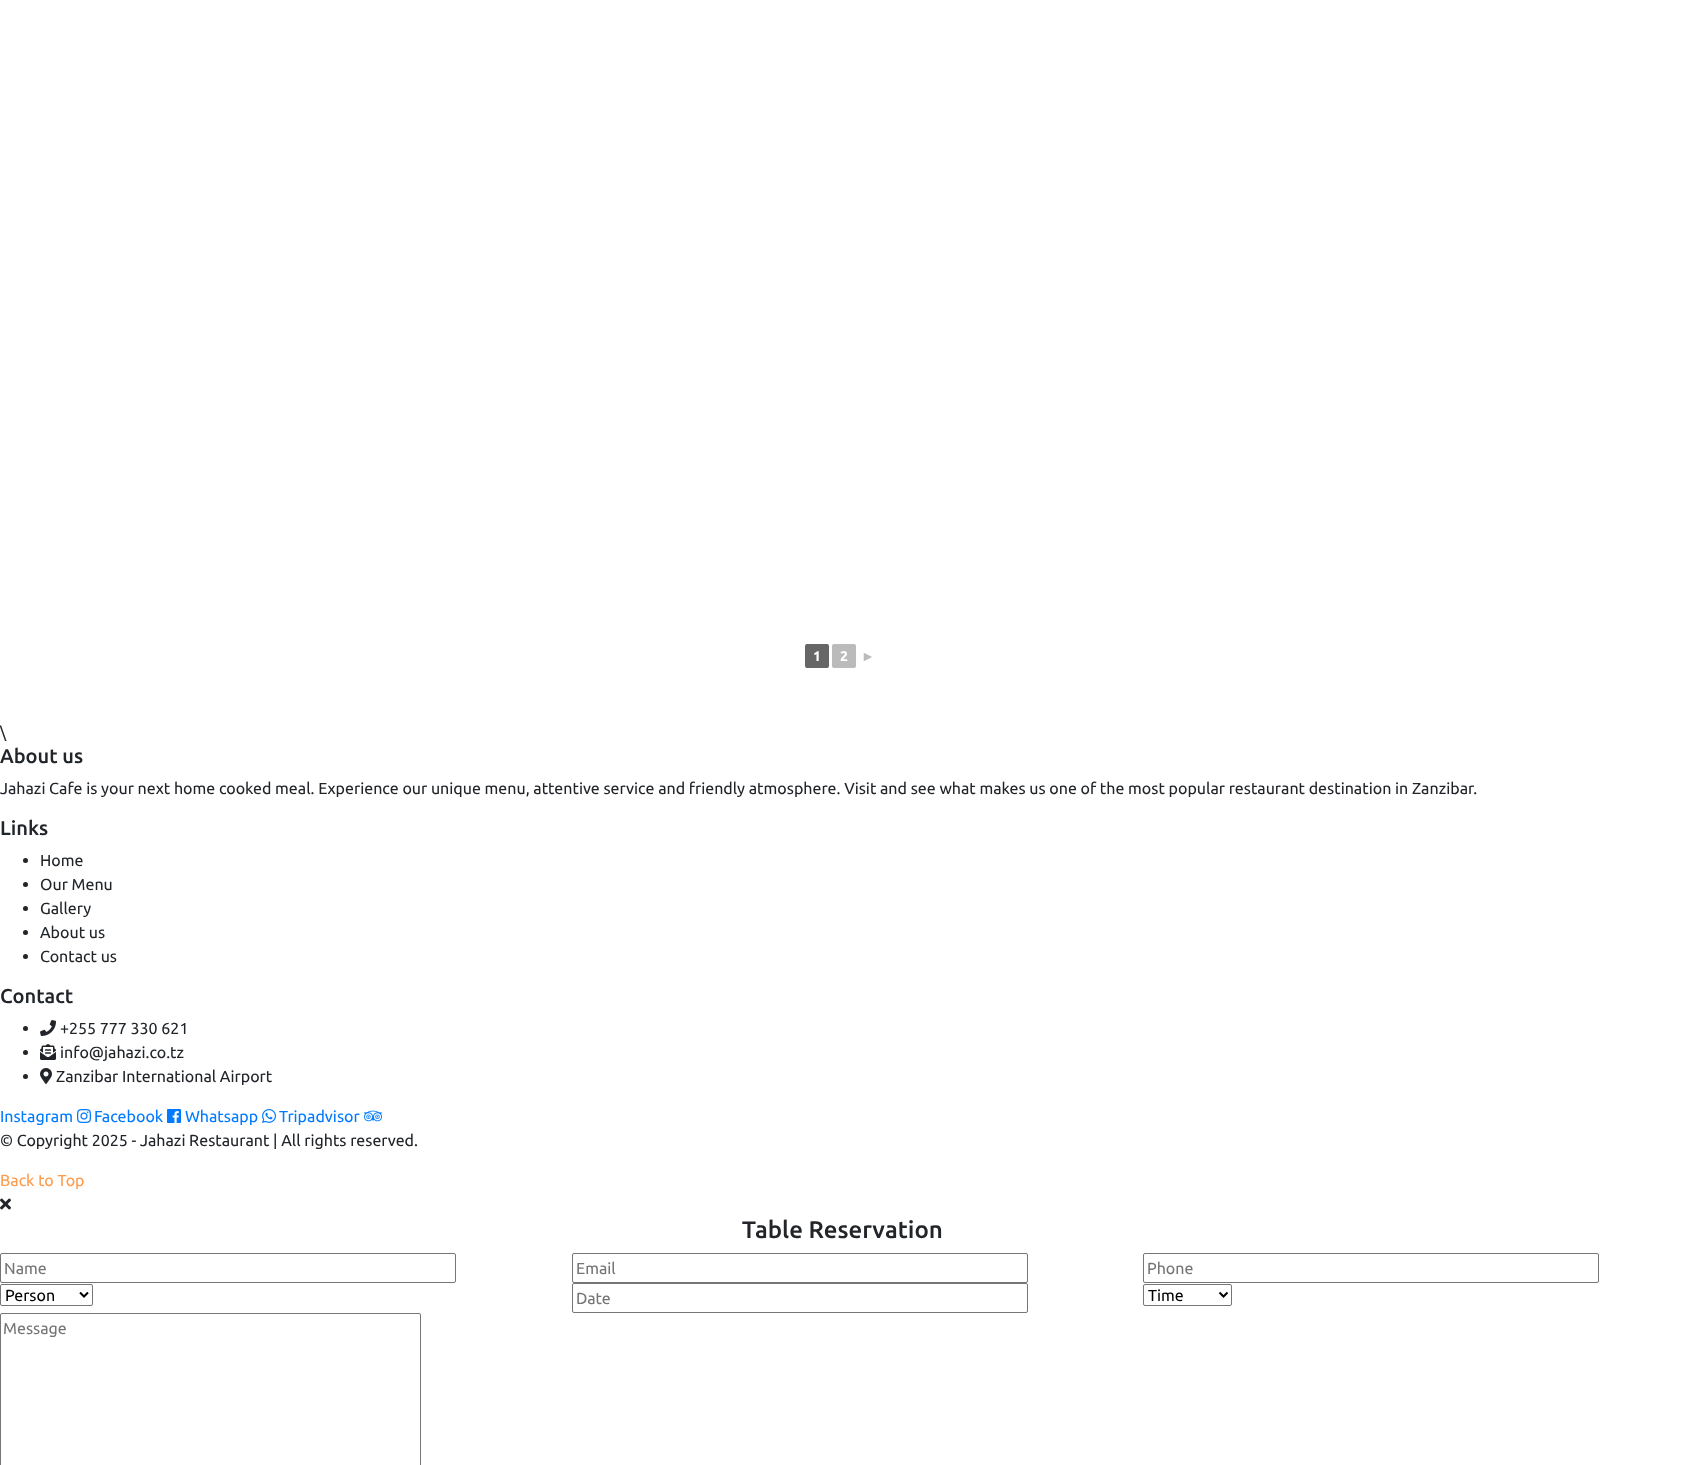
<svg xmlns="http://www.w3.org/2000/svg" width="1685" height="1465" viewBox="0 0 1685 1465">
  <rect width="100%" height="100%" fill="rgb(255,255,255)"/>
  <rect x="805" y="644" width="24" height="24" rx="2" fill="rgb(102,102,102)"/>
  <text x="813" y="661" font-family="Ubuntu" font-size="14" font-weight="bold" fill="rgb(255,255,255)">1</text>
  <rect x="832" y="644" width="24" height="24" rx="2" fill="rgb(187,187,187)"/>
  <text x="840" y="661" font-family="Ubuntu" font-size="14" font-weight="bold" fill="rgb(255,255,255)">2</text>
  <text x="861" y="661" font-family="Liberation Serif" font-size="14" font-weight="bold" fill="rgb(187,187,187)">►</text>
  <text x="0" y="738" font-family="Ubuntu" font-size="16" fill="rgb(33,37,41)">\</text>
  <text x="0" y="763" font-family="Ubuntu" font-size="20" font-weight="500" fill="rgb(33,37,41)">About us</text>
  <text x="0" y="794" font-family="Ubuntu" font-size="16" fill="rgb(33,37,41)">Jahazi Cafe is your next home cooked meal. Experience our unique menu, attentive service and friendly atmosphere. Visit and see what makes us one of the most popular restaurant destination in Zanzibar.</text>
  <text x="0" y="835" font-family="Ubuntu" font-size="20" font-weight="500" fill="rgb(33,37,41)">Links</text>
  <circle cx="25.5" cy="860.5" r="2.5" fill="rgb(33,37,41)"/>
  <text x="40" y="866" font-family="Ubuntu" font-size="16" fill="rgb(33,37,41)">Home</text>
  <circle cx="25.5" cy="884.5" r="2.5" fill="rgb(33,37,41)"/>
  <text x="40" y="890" font-family="Ubuntu" font-size="16" fill="rgb(33,37,41)">Our Menu</text>
  <circle cx="25.5" cy="908.5" r="2.5" fill="rgb(33,37,41)"/>
  <text x="40" y="914" font-family="Ubuntu" font-size="16" fill="rgb(33,37,41)">Gallery</text>
  <circle cx="25.5" cy="932.5" r="2.5" fill="rgb(33,37,41)"/>
  <text x="40" y="938" font-family="Ubuntu" font-size="16" fill="rgb(33,37,41)">About us</text>
  <circle cx="25.5" cy="956.5" r="2.5" fill="rgb(33,37,41)"/>
  <text x="40" y="962" font-family="Ubuntu" font-size="16" fill="rgb(33,37,41)">Contact us</text>
  <text x="0" y="1003" font-family="Ubuntu" font-size="20" font-weight="500" fill="rgb(33,37,41)">Contact</text>
  <circle cx="25.5" cy="1028.5" r="2.5" fill="rgb(33,37,41)"/>
  <image x="40" y="1020" width="16" height="16" href="pic1.png"/>
  <text x="60" y="1034" font-family="Ubuntu" font-size="16" fill="rgb(33,37,41)">+255 777 330 621</text>
  <circle cx="25.5" cy="1052.5" r="2.5" fill="rgb(33,37,41)"/>
  <image x="40" y="1044" width="16" height="16" href="pic2.png"/>
  <text x="60" y="1058" font-family="Ubuntu" font-size="16" fill="rgb(33,37,41)">info@jahazi.co.tz</text>
  <circle cx="25.5" cy="1076.5" r="2.5" fill="rgb(33,37,41)"/>
  <image x="40" y="1068" width="12" height="16" href="pic3.png"/>
  <text x="56" y="1082" font-family="Ubuntu" font-size="16" fill="rgb(33,37,41)">Zanzibar International Airport</text>
  <text x="0" y="1122" font-family="Ubuntu" font-size="16" fill="rgb(0,123,255)">Instagram</text>
  <image x="77" y="1109" width="14" height="14" href="pic4.png"/>
  <text x="94" y="1122" font-family="Ubuntu" font-size="16" fill="rgb(0,123,255)">Facebook</text>
  <image x="167" y="1109" width="14" height="14" href="pic5.png"/>
  <text x="185" y="1122" font-family="Ubuntu" font-size="16" fill="rgb(0,123,255)">Whatsapp</text>
  <image x="262" y="1109" width="14" height="14" href="pic6.png"/>
  <text x="279" y="1122" font-family="Ubuntu" font-size="16" fill="rgb(0,123,255)">Tripadvisor</text>
  <image x="364" y="1110" width="18" height="12" href="pic7.png"/>
  <text x="0" y="1146" font-family="Ubuntu" font-size="16" fill="rgb(33,37,41)">© Copyright 2025 - Jahazi Restaurant | All rights reserved.</text>
  <text x="0" y="1186" font-family="Ubuntu" font-size="16" fill="rgb(254,155,76)">Back to Top</text>
  <image x="0" y="1198" width="11" height="12" href="pic8.png"/>
  <text x="742" y="1238" font-family="Ubuntu" font-size="24" font-weight="500" fill="rgb(33,37,41)">Table Reservation</text>
  <rect x="0.5" y="1253.5" width="455" height="29" rx="1.5" fill="none" stroke="rgb(118,118,118)"/>
  <text x="4" y="1274" font-family="Ubuntu" font-size="16" fill="rgb(117,117,117)">Name</text>
  <rect x="572.5" y="1253.5" width="455" height="29" rx="1.5" fill="none" stroke="rgb(118,118,118)"/>
  <text x="576" y="1274" font-family="Ubuntu" font-size="16" fill="rgb(117,117,117)">Email</text>
  <rect x="1143.5" y="1253.5" width="455" height="29" rx="1.5" fill="none" stroke="rgb(118,118,118)"/>
  <text x="1147" y="1274" font-family="Ubuntu" font-size="16" fill="rgb(117,117,117)">Phone</text>
  <rect x="0.5" y="1284.5" width="92" height="21" rx="1.5" fill="none" stroke="rgb(118,118,118)"/>
  <path d="M80 1292.5L84 1296.5L88 1292.5" fill="none" stroke="rgb(0,0,0)" stroke-width="2"/>
  <text x="5" y="1301" font-family="Ubuntu" font-size="16" fill="rgb(0,0,0)">Person</text>
  <rect x="572.5" y="1283.5" width="455" height="29" rx="1.5" fill="none" stroke="rgb(118,118,118)"/>
  <text x="576" y="1304" font-family="Ubuntu" font-size="16" fill="rgb(117,117,117)">Date</text>
  <rect x="1143.5" y="1284.5" width="88" height="21" rx="1.5" fill="none" stroke="rgb(118,118,118)"/>
  <path d="M1219.5 1292.5L1223.5 1296.5L1227.5 1292.5" fill="none" stroke="rgb(0,0,0)" stroke-width="2"/>
  <text x="1148" y="1301" font-family="Ubuntu" font-size="16" fill="rgb(0,0,0)">Time</text>
  <rect x="0.5" y="1313.5" width="420" height="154" rx="1.5" fill="none" stroke="rgb(118,118,118)"/>
  <text x="3" y="1334" font-family="Ubuntu" font-size="16" fill="rgb(117,117,117)">Message</text>
</svg>
